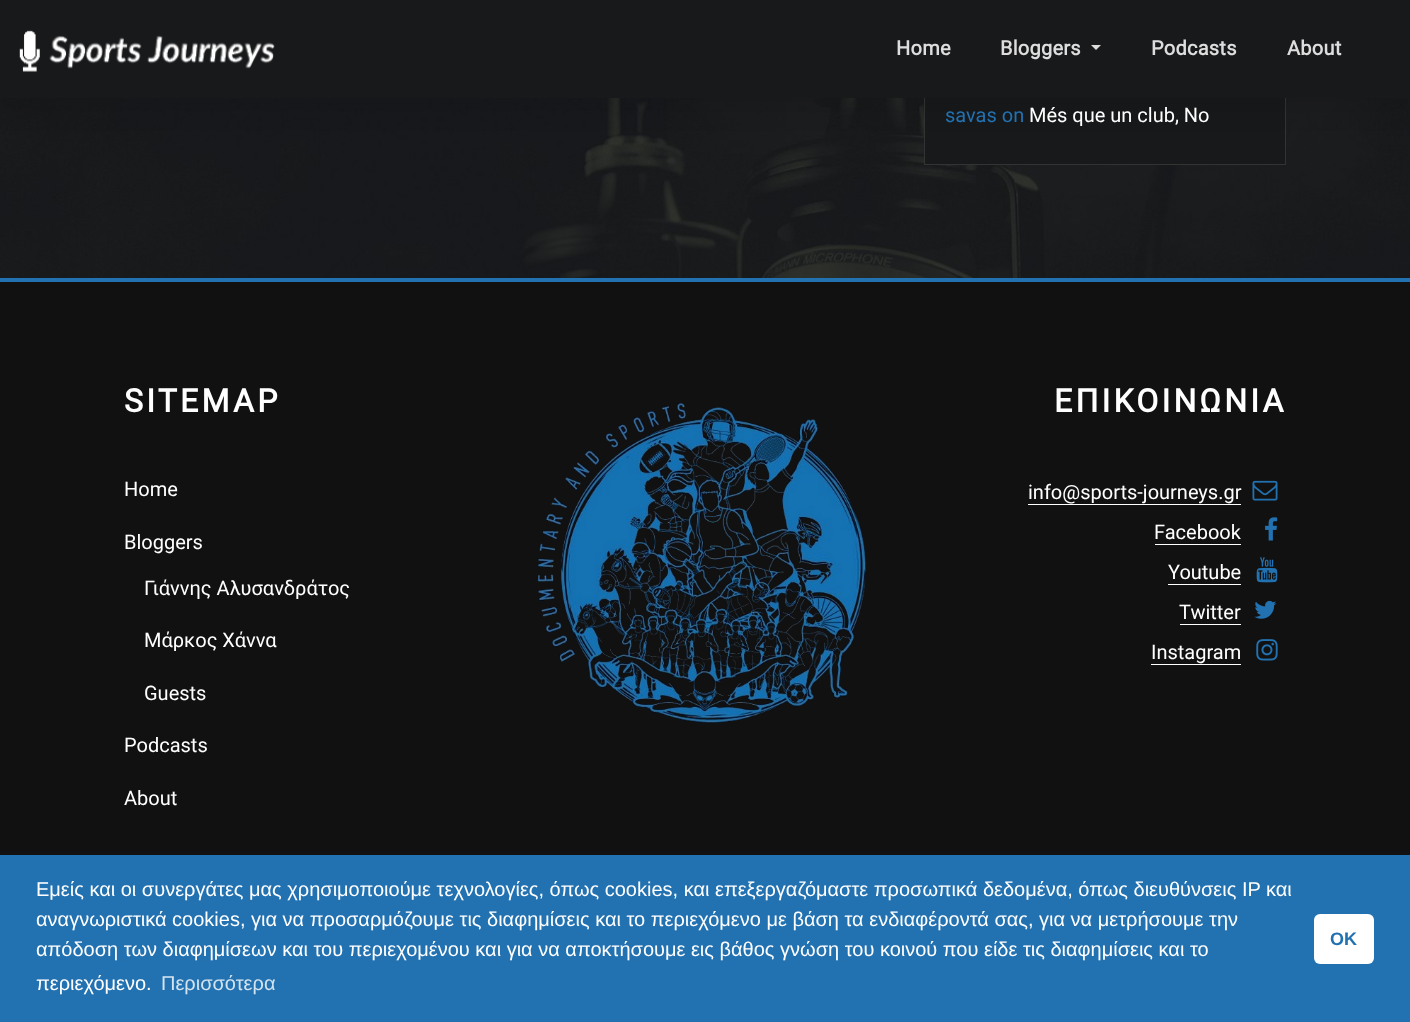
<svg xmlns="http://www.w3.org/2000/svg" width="1410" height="1022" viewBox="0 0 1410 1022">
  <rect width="100%" height="100%" fill="rgb(255,255,255)"/>
  <image x="0" y="98" width="1410" height="180" href="pic1.png"/>
  <rect x="925" y="98" width="360" height="66" fill="rgb(24,25,27)"/>
  <rect x="924.5" y="-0.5" width="361" height="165" fill="none" stroke="rgb(51,51,51)"/>
  <rect x="0" y="10" width="1410" height="98" fill="rgba(0,0,0,0.1)" filter="blur(12.5px)"/>
  <rect x="0" y="0" width="1410" height="98" fill="rgb(24,25,27)"/>
  <image x="19" y="30" width="256" height="42" href="pic2.png"/>
  <g font-family="Roboto" font-size="20" font-weight="bold" letter-spacing="0.25" fill="rgb(221,221,221)">
    <text x="896" y="55">Home</text>
    <text x="1000" y="55">Bloggers</text>
  </g>
  <path d="M1091 45H1101L1096 50Z" fill="rgb(221,221,221)"/>
  <g font-family="Roboto" font-size="20" font-weight="bold" letter-spacing="0.25" fill="rgb(221,221,221)">
    <text x="1151" y="55">Podcasts</text>
    <text x="1287" y="55">About</text>
  </g>
  <text x="945" y="122" font-family="Roboto" font-size="20" fill="rgb(34,113,177)">savas on</text>
  <text x="1029" y="122" font-family="Roboto" font-size="20" fill="rgb(255,255,255)">Μés que un club, No</text>
  <rect x="0" y="282" width="1410" height="573" fill="rgb(17,17,17)"/>
  <rect x="0" y="278" width="1410" height="4" fill="rgb(34,113,177)"/>
  <text x="124" y="412" font-family="Roboto" font-size="32" font-weight="bold" letter-spacing="3.25" fill="rgb(255,255,255)">SITEMAP</text>
  <g font-family="Roboto" font-size="20" fill="rgb(255,255,255)">
    <text x="124" y="496">Home</text>
    <text x="124" y="549">Bloggers</text>
    <text x="144" y="595">Γιάννης Αλυσανδράτος</text>
    <text x="144" y="647">Μάρκος Χάννα</text>
    <text x="144" y="700">Guests</text>
    <text x="124" y="752">Podcasts</text>
    <text x="124" y="805">About</text>
  </g>
  <image x="537" y="403" width="329" height="320" href="pic3.png"/>
  <text x="1054" y="412" font-family="Roboto" font-size="32" font-weight="bold" letter-spacing="3.25" fill="rgb(255,255,255)">ΕΠΙΚΟΙΝΩΝΙΑ</text>
  <text x="1028" y="499" font-family="Roboto" font-size="20" fill="rgb(255,255,255)">info@sports-journeys.gr</text>
  <rect x="1028" y="504" width="213" height="1" fill="rgb(255,255,255)"/>
  <image x="1252" y="480" width="26" height="21" href="pic4.png"/>
  <text x="1154" y="539" font-family="Roboto" font-size="20" fill="rgb(255,255,255)">Facebook</text>
  <rect x="1155" y="544" width="86" height="1" fill="rgb(255,255,255)"/>
  <image x="1265" y="517" width="13" height="24" href="pic5.png"/>
  <text x="1168" y="579" font-family="Roboto" font-size="20" fill="rgb(255,255,255)">Youtube</text>
  <rect x="1168" y="584" width="73" height="1" fill="rgb(255,255,255)"/>
  <image x="1256" y="557" width="22" height="26" href="pic6.png"/>
  <text x="1179" y="619" font-family="Roboto" font-size="20" fill="rgb(255,255,255)">Twitter</text>
  <rect x="1180" y="624" width="61" height="1" fill="rgb(255,255,255)"/>
  <image x="1254" y="600" width="23" height="19" href="pic7.png"/>
  <text x="1151" y="659" font-family="Roboto" font-size="20" fill="rgb(255,255,255)">Instagram</text>
  <path d="M1151 641V665H1241V664H1151Z" fill="rgb(255,255,255)"/>
  <image x="1256" y="639" width="22" height="22" href="pic8.png"/>
  <rect x="0" y="855" width="1410" height="167" fill="rgb(34,113,177)"/>
  <g font-family="Liberation Sans" font-size="20" fill="rgb(255,255,255)">
    <text>
      <tspan x="36" y="896">Εμείς και οι συνεργάτες μας χρησιμοποιούμε τεχνολογίες, όπως cookies, και επεξεργαζόμαστε προσωπικά δεδομένα, όπως διευθύνσεις IP και</tspan>
      <tspan x="36" y="926">αναγνωριστικά cookies, για να προσαρμόζουμε τις διαφημίσεις και το περιεχόμενο με βάση τα ενδιαφέροντά σας, για να μετρήσουμε την</tspan>
      <tspan x="36" y="956">απόδοση των διαφημίσεων και του περιεχομένου και για να αποκτήσουμε εις βάθος γνώση του κοινού που είδε τις διαφημίσεις και το</tspan>
      <tspan x="36" y="990">περιεχόμενο.</tspan>
    </text>
  </g>
  <text x="161" y="990" font-family="Liberation Sans" font-size="20" fill="rgb(211,227,239)">Περισσότερα</text>
  <rect x="1314" y="914" width="60" height="50" rx="6" fill="rgb(255,255,255)"/>
  <text x="1330" y="945" font-family="Liberation Sans" font-size="18" font-weight="bold" fill="rgb(34,113,177)">OK</text>
</svg>
